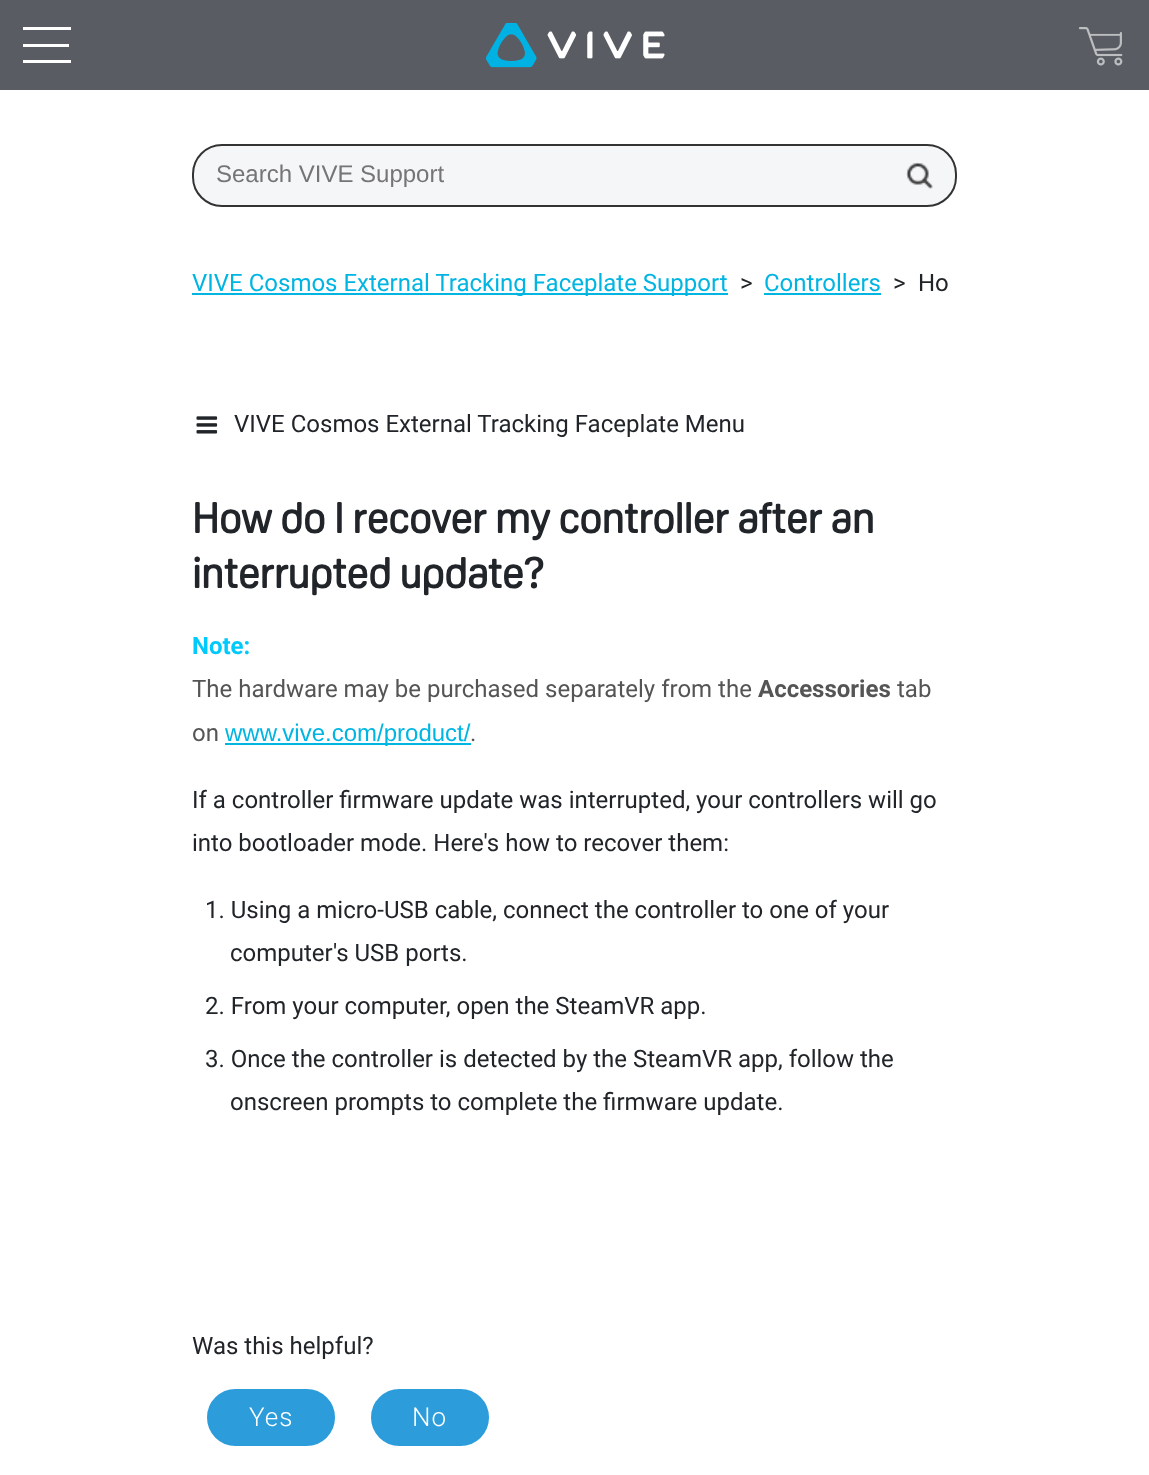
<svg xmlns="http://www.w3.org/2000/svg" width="1149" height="1475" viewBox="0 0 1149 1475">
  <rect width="100%" height="100%" fill="rgb(255,255,255)"/>
  <rect x="0" y="0" width="1149" height="90" fill="rgb(89,93,99)"/>
  <rect x="23" y="44" width="46" height="3" fill="rgb(255,255,255)"/>
  <rect x="23" y="27" width="48" height="3" fill="rgb(255,255,255)"/>
  <rect x="23" y="60" width="48" height="3" fill="rgb(255,255,255)"/>
  <image x="486" y="23" width="179" height="45" href="pic1.png"/>
  <image x="1078" y="27" width="45" height="39" href="pic2.png"/>
  <rect x="193" y="145" width="763" height="61" rx="29" fill="rgb(244,246,248)" stroke="rgb(51,51,51)" stroke-width="2"/>
  <text x="216" y="182" font-family="Liberation Sans" font-size="24" fill="rgb(117,117,117)">Search VIVE Support</text>
  <image x="906" y="162" width="27" height="27" href="pic3.png"/>
  <rect x="192" y="293" width="536" height="2" fill="rgb(0,181,226)"/>
  <text x="192" y="291" font-family="Roboto" font-size="24" fill="rgb(0,181,226)">VIVE Cosmos External Tracking Faceplate Support</text>
  <text x="740" y="291" font-family="Roboto" font-size="24" fill="rgb(33,37,41)">&gt;</text>
  <text x="764" y="291" font-family="Roboto" font-size="24" fill="rgb(0,181,226)">Controllers</text>
  <rect x="764" y="293" width="117" height="2" fill="rgb(0,181,226)"/>
  <g font-family="Roboto" font-size="24" fill="rgb(33,37,41)">
    <text x="893" y="291">&gt;</text>
    <text x="918" y="291">Ho</text>
  </g>
  <image x="196" y="416" width="22" height="18" href="pic4.png"/>
  <text x="234" y="432" font-family="Roboto" font-size="24" fill="rgb(33,37,41)">VIVE Cosmos External Tracking Faceplate Menu</text>
  <g font-family="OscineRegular" font-size="42" font-weight="bold" fill="rgb(33,37,41)">
    <text>
      <tspan x="192" y="533">How do I recover my controller after an</tspan>
      <tspan x="192" y="588">interrupted update?</tspan>
    </text>
  </g>
  <text x="192" y="654" font-family="Roboto" font-size="24" font-weight="bold" fill="rgb(0,201,251)">Note:</text>
  <text x="192" y="697" font-family="Roboto" font-size="24" fill="rgb(85,85,85)">The hardware may be purchased separately from the</text>
  <text x="758" y="697" font-family="Roboto" font-size="24" font-weight="bold" fill="rgb(85,85,85)">Accessories</text>
  <g font-family="Roboto" font-size="24" fill="rgb(85,85,85)">
    <text x="897" y="697">tab</text>
    <text x="192" y="741">on</text>
  </g>
  <rect x="225" y="743" width="246" height="2" fill="rgb(0,181,226)"/>
  <text x="225" y="741" font-family="Liberation Sans" font-size="24" fill="rgb(0,181,226)">www.vive.com/product/</text>
  <text x="470" y="741" font-family="Roboto" font-size="24" fill="rgb(85,85,85)">.</text>
  <g font-family="Roboto" font-size="24" fill="rgb(33,37,41)">
    <text>
      <tspan x="192" y="808">If a controller firmware update was interrupted, your controllers will go</tspan>
      <tspan x="192" y="851">into bootloader mode. Here's how to recover them:</tspan>
    </text>
    <text x="205" y="918">1. Using a micro-USB cable, connect the controller to one of your</text>
    <text x="230" y="961">computer's USB ports.</text>
    <text x="205" y="1014">2. From your computer, open the SteamVR app.</text>
    <text x="205" y="1067">3. Once the controller is detected by the SteamVR app, follow the</text>
    <text x="230" y="1110">onscreen prompts to complete the firmware update.</text>
    <text x="192" y="1354">Was this helpful?</text>
  </g>
  <rect x="208" y="1390" width="126" height="55" rx="27.5" fill="rgb(44,156,219)" stroke="rgb(44,156,219)" stroke-width="2"/>
  <text x="249" y="1426" font-family="Roboto" font-size="26" font-weight="300" letter-spacing="1" fill="rgb(255,255,255)">Yes</text>
  <rect x="372" y="1390" width="116" height="55" rx="27.5" fill="rgb(44,156,219)" stroke="rgb(44,156,219)" stroke-width="2"/>
  <text x="412" y="1426" font-family="Roboto" font-size="26" font-weight="300" letter-spacing="1" fill="rgb(255,255,255)">No</text>
</svg>
